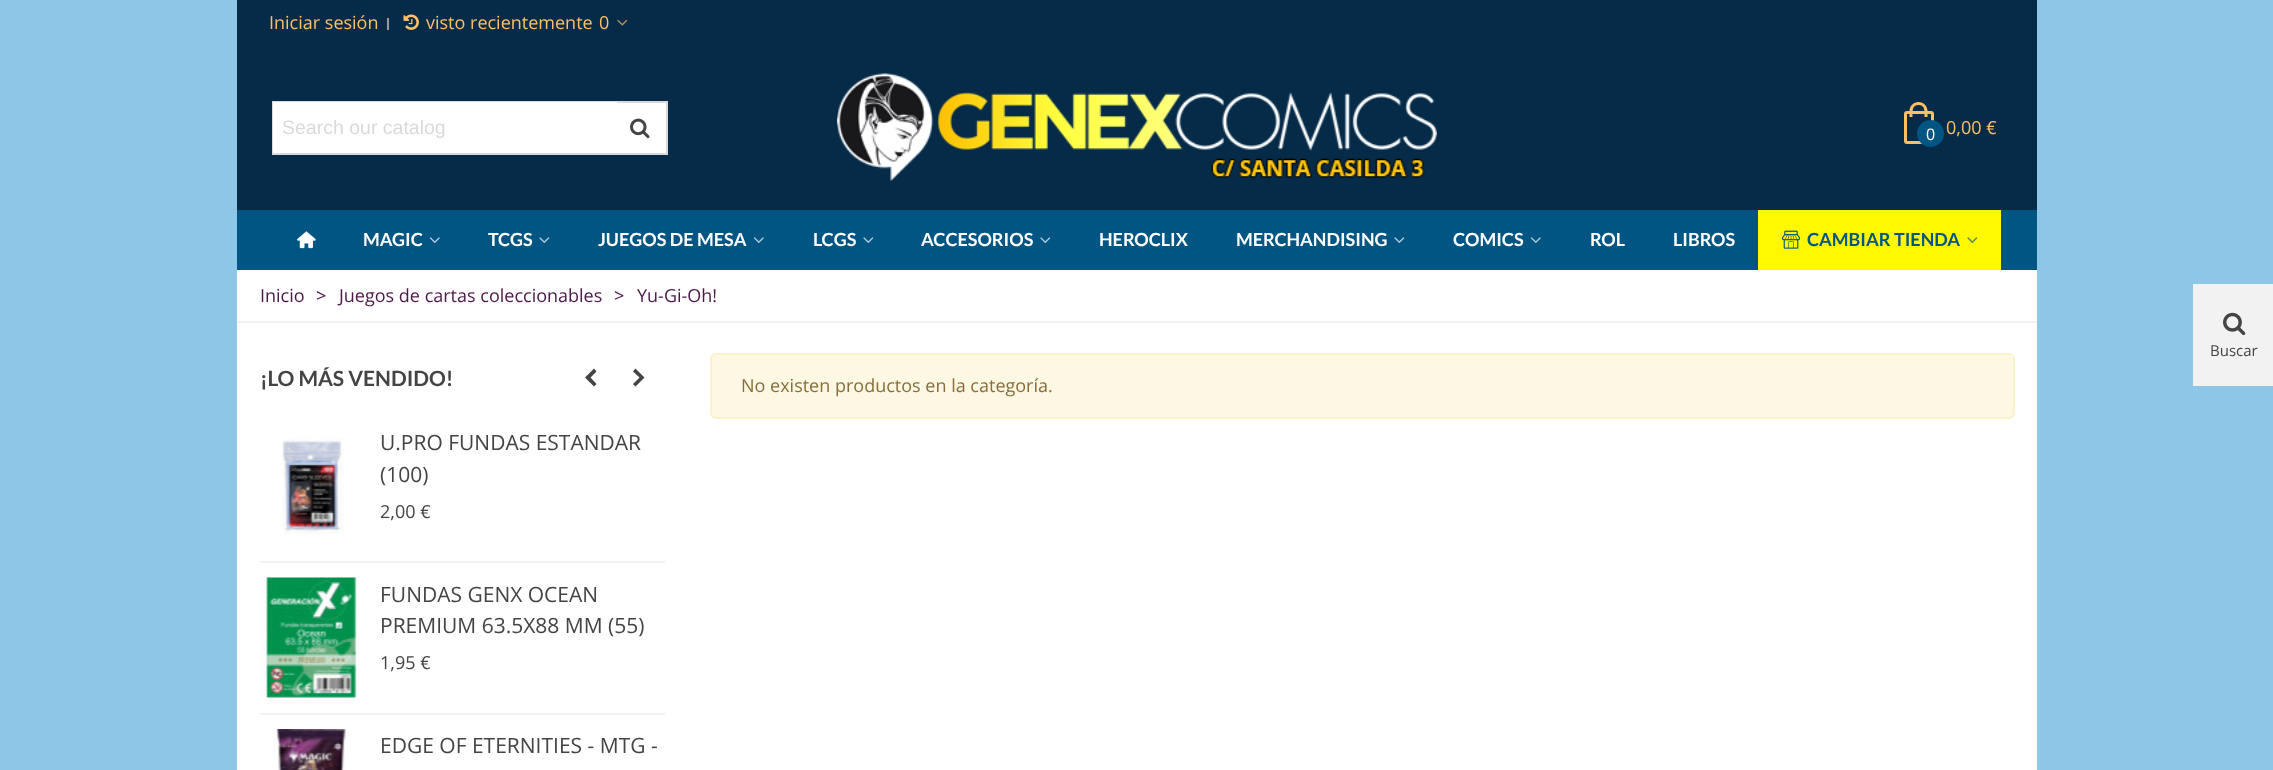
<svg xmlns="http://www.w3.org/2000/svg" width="2273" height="770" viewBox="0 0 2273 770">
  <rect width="100%" height="100%" fill="rgb(141,198,230)"/>
  <rect x="237" y="270" width="1800" height="500" fill="rgb(255,255,255)"/>
  <rect x="237" y="0" width="1800" height="210" fill="rgb(5,43,72)"/>
  <text x="269" y="29" font-family="Open Sans" font-size="18" fill="rgb(253,192,102)">Iniciar sesión</text>
  <rect x="387" y="18" width="2" height="12" fill="rgb(153,153,153)"/>
  <image x="403" y="14" width="16" height="16" href="pic1.png"/>
  <g font-family="Open Sans" font-size="18" fill="rgb(253,192,102)">
    <text x="426" y="29">visto recientemente</text>
    <text x="599" y="29">0</text>
  </g>
  <image x="617" y="19" width="11" height="7" href="pic2.png"/>
  <rect x="617" y="103" width="49" height="50" fill="rgb(255,255,255)"/>
  <rect x="273" y="102" width="394" height="52" fill="none" stroke="rgb(217,217,217)" stroke-width="2"/>
  <rect x="273" y="102" width="344" height="51" fill="rgb(255,255,255)"/>
  <text x="282" y="134" font-family="Liberation Sans" font-size="19.5" fill="rgb(218,218,218)">Search our catalog</text>
  <image x="630" y="118" width="20" height="21" href="pic3.png"/>
  <image x="837" y="73" width="600" height="109" href="pic4.png"/>
  <rect x="1905.5" y="112.5" width="27" height="30" rx="1.5" fill="none" stroke="rgb(253,192,102)" stroke-width="3"/>
  <path d="M1918.5 102C1923.5 102 1927.5 106 1927.5 111V117H1909.5V111C1909.5 106 1913.5 102 1918.5 102ZM1918.5 105C1925.5 105 1924.5 112.5 1924.5 117H1912.5C1912.5 112.5 1911.5 105 1918.5 105Z" fill="rgb(253,192,102)" fill-rule="evenodd"/>
  <circle cx="1930.5" cy="133.5" r="12" fill="rgb(1,85,131)" stroke="rgb(1,85,131)" stroke-width="3"/>
  <text x="1926" y="140" font-family="Open Sans" font-size="16" fill="rgb(255,255,255)">0</text>
  <text x="1946" y="134" font-family="Open Sans" font-size="18" fill="rgb(253,192,102)">0,00 €</text>
  <rect x="237" y="210" width="1800" height="60" fill="rgb(1,85,131)"/>
  <image x="297" y="231" width="19" height="18" href="pic5.png"/>
  <text x="363" y="246" font-family="Lato" font-size="18" font-weight="bold" fill="rgb(255,255,255)">MAGIC</text>
  <image x="429" y="237" width="11" height="6" href="pic6.png"/>
  <text x="488" y="246" font-family="Lato" font-size="18" font-weight="bold" fill="rgb(255,255,255)">TCGS</text>
  <image x="539" y="237" width="11" height="6" href="pic7.png"/>
  <text x="598" y="246" font-family="Lato" font-size="18" font-weight="bold" fill="rgb(255,255,255)">JUEGOS DE MESA</text>
  <image x="753" y="237" width="11" height="6" href="pic6.png"/>
  <text x="813" y="246" font-family="Lato" font-size="18" font-weight="bold" fill="rgb(255,255,255)">LCGS</text>
  <image x="863" y="237" width="11" height="6" href="pic7.png"/>
  <text x="921" y="246" font-family="Lato" font-size="18" font-weight="bold" fill="rgb(255,255,255)">ACCESORIOS</text>
  <image x="1040" y="237" width="11" height="6" href="pic7.png"/>
  <g font-family="Lato" font-size="18" font-weight="bold" fill="rgb(255,255,255)">
    <text x="1099" y="246">HEROCLIX</text>
    <text x="1236" y="246">MERCHANDISING</text>
  </g>
  <image x="1394" y="237" width="11" height="6" href="pic7.png"/>
  <text x="1453" y="246" font-family="Lato" font-size="18" font-weight="bold" fill="rgb(255,255,255)">COMICS</text>
  <image x="1530" y="237" width="11" height="6" href="pic6.png"/>
  <g font-family="Lato" font-size="18" font-weight="bold" fill="rgb(255,255,255)">
    <text x="1590" y="246">ROL</text>
    <text x="1673" y="246">LIBROS</text>
  </g>
  <rect x="1758" y="210" width="243" height="60" fill="rgb(255,248,0)"/>
  <image x="1782" y="230" width="18" height="19" href="pic8.png"/>
  <text x="1807" y="246" font-family="Lato" font-size="18" font-weight="bold" fill="rgb(1,85,131)">CAMBIAR TIENDA</text>
  <image x="1967" y="237" width="11" height="6" href="pic9.png"/>
  <rect x="237" y="321" width="1800" height="2" fill="rgb(242,242,242)"/>
  <g font-family="Open Sans" font-size="18" fill="rgb(74,25,70)">
    <text x="260" y="302">Inicio</text>
    <text x="316" y="302">&gt;</text>
    <text x="339" y="302">Juegos de cartas coleccionables</text>
    <text x="614" y="302">&gt;</text>
    <text x="637" y="302">Yu-Gi-Oh!</text>
  </g>
  <text x="260" y="386" font-family="Lato" font-size="21" font-weight="bold" fill="rgb(68,68,68)">¡LO MÁS VENDIDO!</text>
  <path d="M585 377.5L594 368.5L596.5 371.5L590.5 377.5L596.5 384L594 386.5ZM633 384L639.5 377.5L633 371.5L635.5 368.5L644.5 377.5L635.5 386.5Z" fill="rgb(68,68,68)"/>
  <rect x="260" y="561" width="405" height="2" fill="rgb(242,242,242)"/>
  <image x="282" y="438" width="62" height="96" href="pic10.png"/>
  <g font-family="Open Sans" font-size="21" fill="rgb(68,68,68)">
    <text>
      <tspan x="380" y="450">U.PRO FUNDAS ESTANDAR</tspan>
      <tspan x="380" y="482">(100)</tspan>
    </text>
  </g>
  <text x="380" y="518" font-family="Open Sans" font-size="18" fill="rgb(68,68,68)">2,00 €</text>
  <rect x="260" y="713" width="405" height="2" fill="rgb(242,242,242)"/>
  <image x="260" y="577" width="97" height="121" href="pic11.png"/>
  <g font-family="Open Sans" font-size="21" fill="rgb(68,68,68)">
    <text>
      <tspan x="380" y="602">FUNDAS GENX OCEAN</tspan>
      <tspan x="380" y="633">PREMIUM 63.5X88 MM (55)</tspan>
    </text>
  </g>
  <text x="380" y="669" font-family="Open Sans" font-size="18" fill="rgb(68,68,68)">1,95 €</text>
  <image x="274" y="729" width="77" height="41" href="pic12.png"/>
  <text x="380" y="753" font-family="Open Sans" font-size="21" fill="rgb(68,68,68)">EDGE OF ETERNITIES - MTG -</text>
  <rect x="711" y="354" width="1303" height="64" rx="5" fill="rgb(252,248,227)" stroke="rgb(250,242,204)" stroke-width="2"/>
  <text x="741" y="392" font-family="Open Sans" font-size="18" fill="rgb(138,109,59)">No existen productos en la categoría.</text>
  <rect x="2193" y="284" width="80" height="102" fill="rgb(242,242,242)"/>
  <image x="2223" y="312" width="23" height="24" href="pic13.png"/>
  <text x="2210" y="356" font-family="Open Sans" font-size="15" fill="rgb(68,68,68)">Buscar</text>
</svg>
